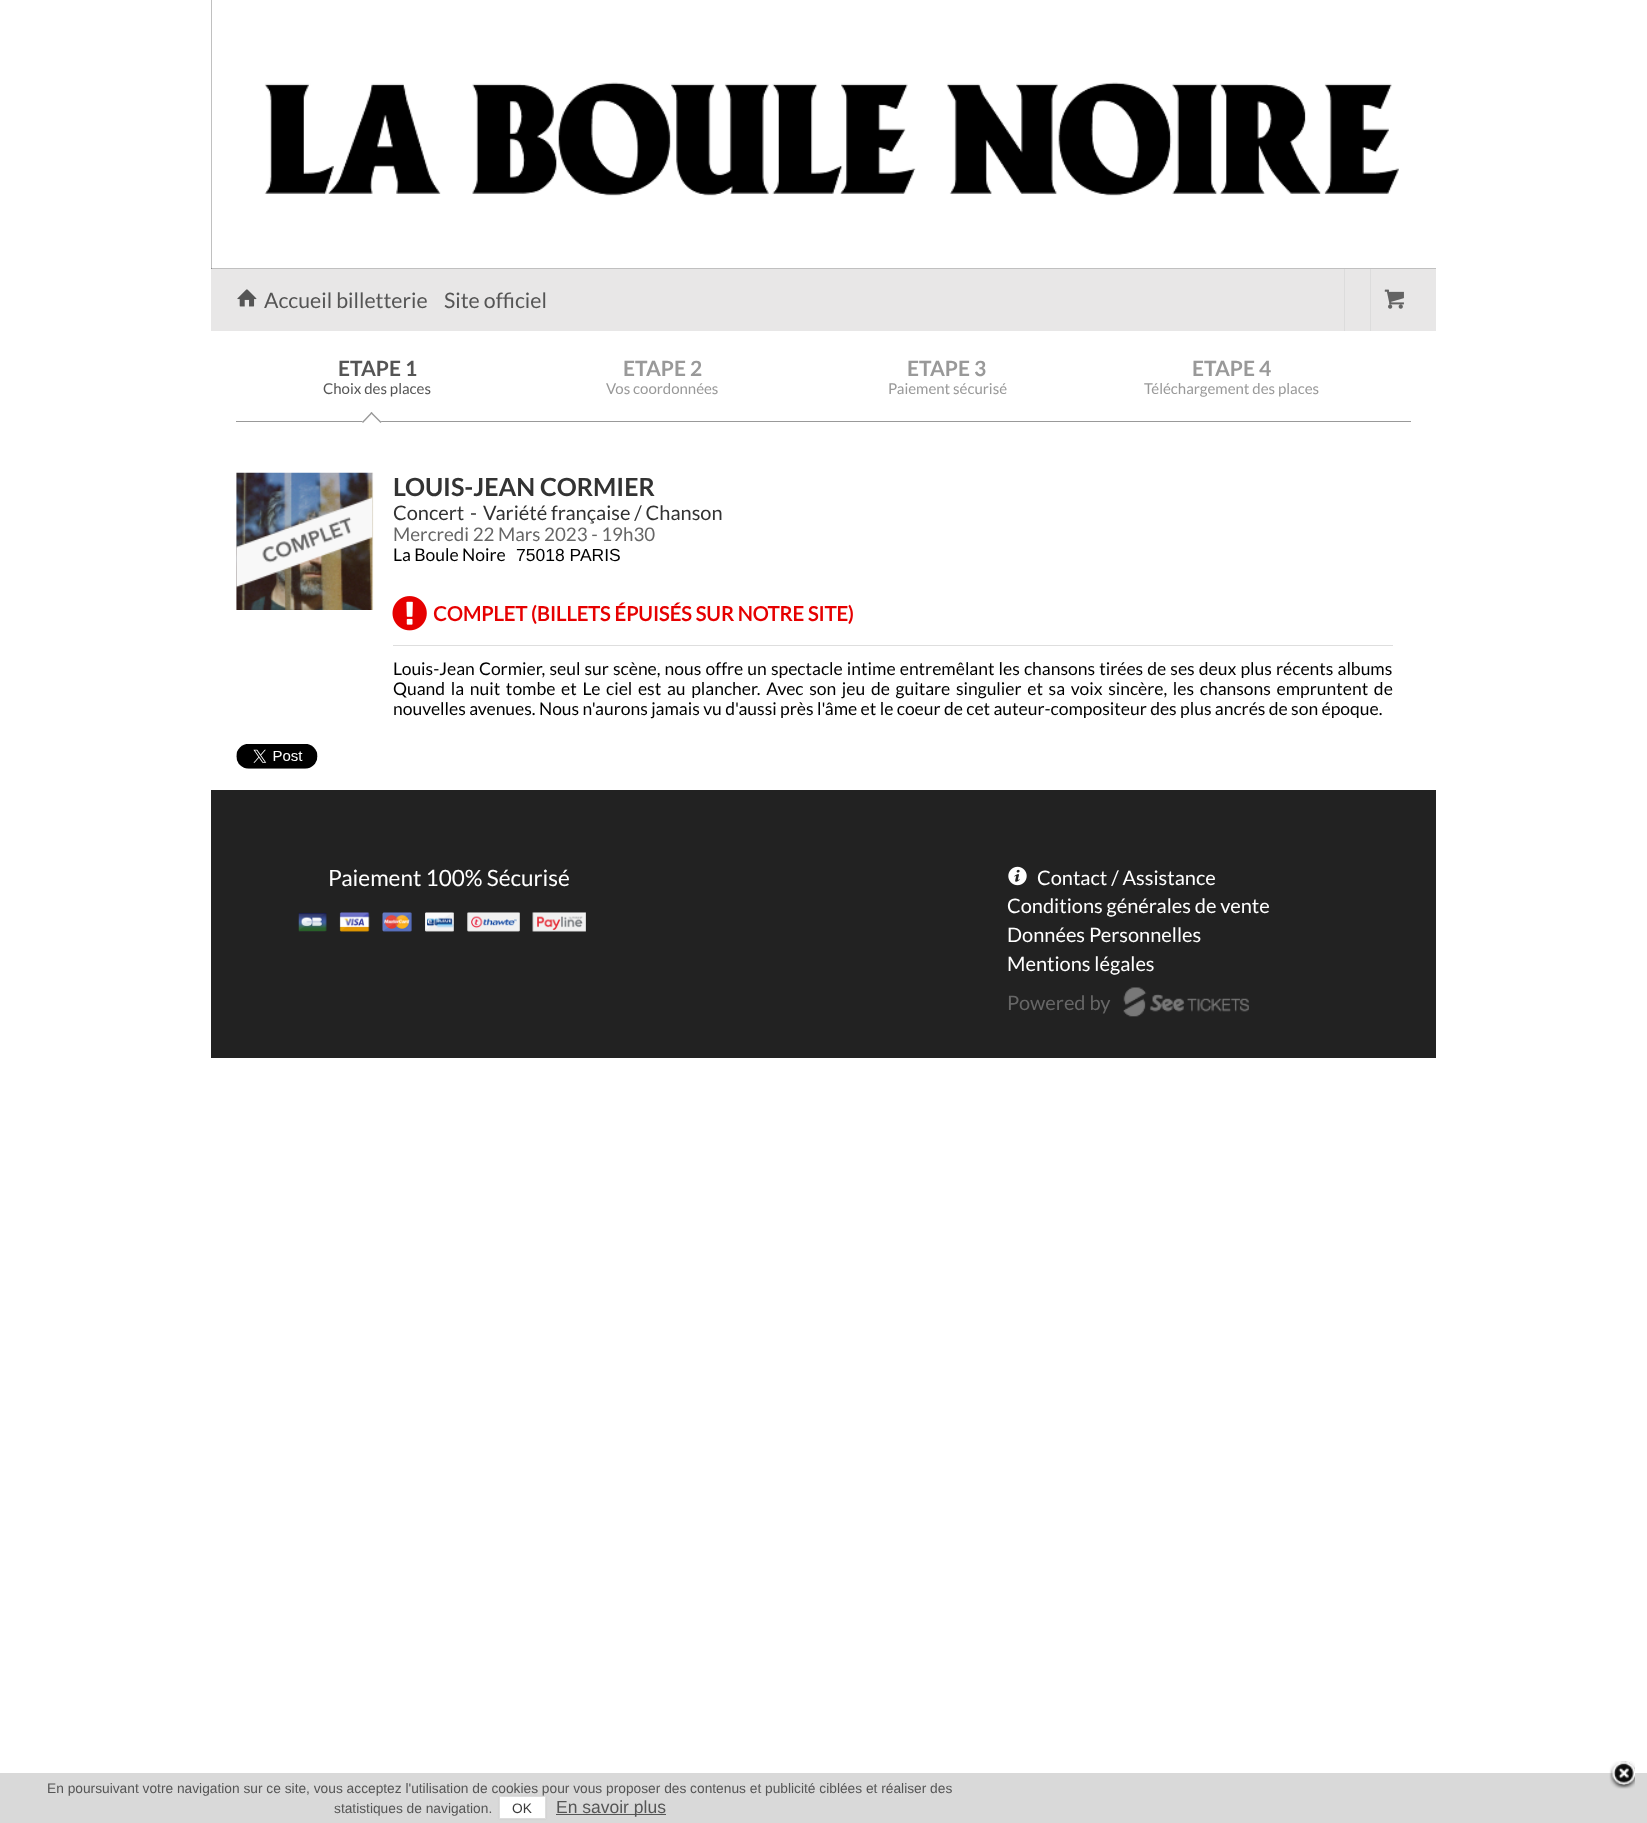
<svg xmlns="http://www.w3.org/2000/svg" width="1647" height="1823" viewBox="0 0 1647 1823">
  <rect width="100%" height="100%" fill="rgb(255,255,255)"/>
  <rect x="211" y="0" width="1225" height="269" fill="rgb(0,0,0)"/>
  <image x="211" y="0" width="1225" height="269" href="pic1.png"/>
  <rect x="211" y="269" width="1225" height="62" fill="rgb(232,231,231)"/>
  <image x="237" y="289" width="20" height="18" href="pic2.png"/>
  <g font-family="Lato" font-size="21.25" fill="rgb(85,85,85)">
    <text x="264" y="308">Accueil billetterie</text>
    <text x="444" y="308">Site officiel</text>
  </g>
  <rect x="1344" y="269" width="1" height="62" fill="rgb(220,220,220)"/>
  <rect x="1370" y="269" width="1" height="62" fill="rgb(220,220,220)"/>
  <image x="1384" y="289" width="20" height="20" href="pic3.png"/>
  <rect x="236" y="421" width="1175" height="1" fill="rgb(153,153,153)"/>
  <text x="338" y="376" font-family="Lato" font-size="21" font-weight="bold" fill="rgb(85,85,85)">ETAPE 1</text>
  <text x="323" y="394" font-family="Lato" font-size="15" fill="rgb(85,85,85)">Choix des places</text>
  <path d="M371.5 412L381.5 422L371.5 431.5L362 422Z" fill="rgb(255,255,255)"/>
  <path d="M371.5 412L381.5 422L380.5 423L370.5 413Z" fill="rgb(153,153,153)"/>
  <path d="M371.5 412L372.5 413L363 423L362 422Z" fill="rgb(153,153,153)"/>
  <text x="623" y="376" font-family="Lato" font-size="21" font-weight="bold" fill="rgb(153,153,153)">ETAPE 2</text>
  <text x="606" y="394" font-family="Lato" font-size="15" fill="rgb(153,153,153)">Vos coordonnées</text>
  <text x="907" y="376" font-family="Lato" font-size="21" font-weight="bold" fill="rgb(153,153,153)">ETAPE 3</text>
  <text x="888" y="394" font-family="Lato" font-size="15" fill="rgb(153,153,153)">Paiement sécurisé</text>
  <text x="1192" y="376" font-family="Lato" font-size="21" font-weight="bold" fill="rgb(153,153,153)">ETAPE 4</text>
  <text x="1144" y="394" font-family="Lato" font-size="15" fill="rgb(153,153,153)">Téléchargement des places</text>
  <image x="236" y="472" width="138" height="138" href="pic4.png"/>
  <image x="236" y="497" width="137" height="91" href="pic5.png"/>
  <text x="393" y="496" font-family="Lato" font-size="25" font-weight="bold" fill="rgb(51,51,51)">LOUIS-JEAN CORMIER</text>
  <g font-family="Lato" font-size="20" fill="rgb(51,51,51)">
    <text x="393" y="520">Concert</text>
    <text x="470" y="520">-</text>
    <text x="483" y="520">Variété française / Chanson</text>
  </g>
  <text x="393" y="541" font-family="Lato" font-size="18.75" fill="rgb(102,102,102)">Mercredi 22 Mars 2023 - 19h30</text>
  <text x="393" y="561" font-family="Lato" font-size="17.5" fill="rgb(0,0,0)">La Boule Noire</text>
  <text x="516" y="561" font-family="Liberation Sans" font-size="17.5" fill="rgb(0,0,0)">75018 PARIS</text>
  <rect x="393" y="645" width="1000" height="1" fill="rgb(222,222,222)"/>
  <image x="392" y="596" width="35" height="35" href="pic6.png"/>
  <text x="433" y="621" font-family="'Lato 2'" font-size="20" font-weight="bold" fill="rgb(230,0,0)">COMPLET (BILLETS ÉPUISÉS SUR NOTRE SITE)</text>
  <g font-family="Lato" font-size="17.5" fill="rgb(0,0,0)">
    <text>
      <tspan x="393" y="675" word-spacing="0.75">Louis-Jean Cormier, seul sur scène, nous offre un spectacle intime entremêlant les chansons tirées de ses deux plus récents albums</tspan>
      <tspan x="393" y="695" word-spacing="2.3">Quand la nuit tombe et Le ciel est au plancher. Avec son jeu de guitare singulier et sa voix sincère, les chansons empruntent de</tspan>
      <tspan x="393" y="715">nouvelles avenues. Nous n'aurons jamais vu d'aussi près l'âme et le coeur de cet auteur-compositeur des plus ancrés de son époque.</tspan>
    </text>
  </g>
  <image x="236" y="744" width="82" height="25" href="pic7.png"/>
  <rect x="211" y="790" width="1225" height="268" fill="rgb(34,34,34)"/>
  <image x="298" y="912" width="288" height="20" href="pic8.png"/>
  <text x="328" y="886" font-family="Lato" font-size="22.5" fill="rgb(255,255,255)">Paiement 100% Sécurisé</text>
  <image x="1008" y="866" width="19" height="20" href="pic9.png"/>
  <g font-family="Lato" font-size="20" fill="rgb(255,255,255)">
    <text x="1037" y="885">Contact / Assistance</text>
    <text>
      <tspan x="1007" y="913">Conditions générales de vente</tspan>
      <tspan x="1007" y="942">Données Personnelles</tspan>
      <tspan x="1007" y="971">Mentions légales</tspan>
    </text>
  </g>
  <text x="1007" y="1010" font-family="Lato" font-size="20" fill="rgb(102,102,102)">Powered by</text>
  <image x="1123" y="987" width="126" height="30" href="pic10.png"/>
  <rect x="0" y="1773" width="1647" height="50" fill="rgb(217,217,217)"/>
  <image x="1609" y="1761" width="26" height="28" href="pic11.png"/>
  <g font-family="Liberation Sans" font-size="13.75" fill="rgb(85,85,85)">
    <text x="47" y="1793">En poursuivant votre navigation sur ce site, vous acceptez l'utilisation de cookies pour vous proposer des contenus et publicité ciblées et réaliser des</text>
    <text x="334" y="1813">statistiques de navigation.</text>
  </g>
  <rect x="499" y="1796" width="47" height="23" fill="rgb(204,204,204)" filter="blur(1px)"/>
  <rect x="499.5" y="1796.5" width="46" height="22" fill="rgb(255,255,255)" stroke="rgb(221,221,221)"/>
  <text x="512" y="1813" font-family="Liberation Sans" font-size="13.75" fill="rgb(59,59,59)">OK</text>
  <rect x="556" y="1814" width="110" height="1" fill="rgb(85,85,85)"/>
  <text x="556" y="1813" font-family="Liberation Sans" font-size="17.5" fill="rgb(85,85,85)">En savoir plus</text>
</svg>
